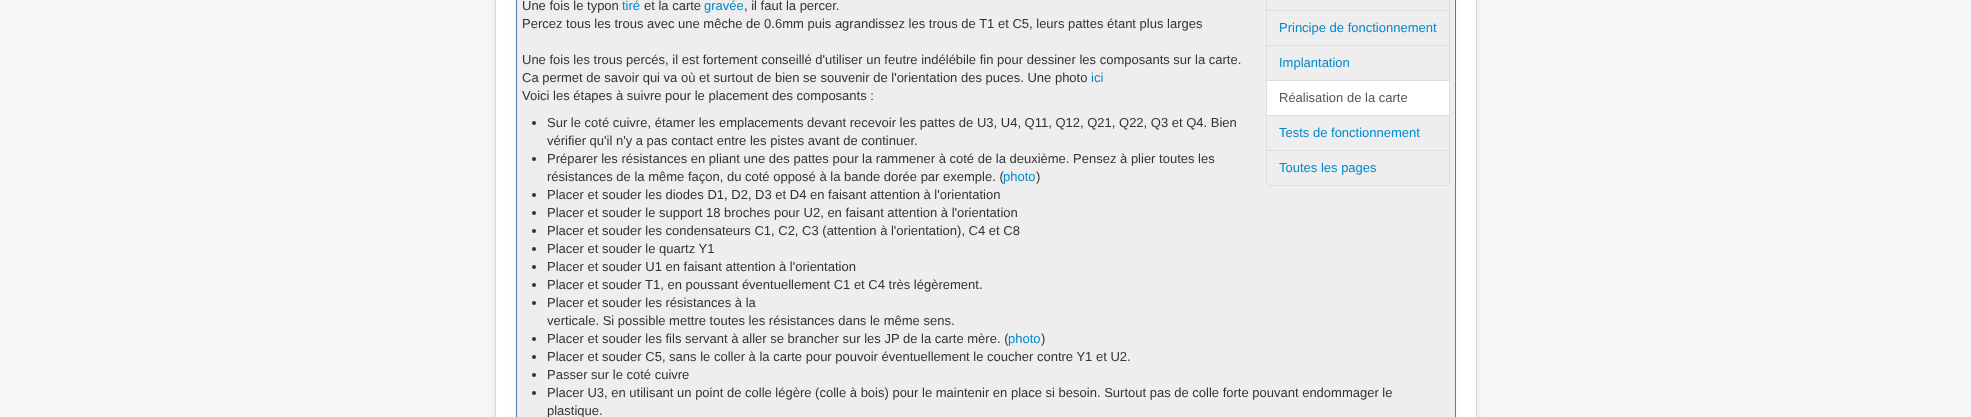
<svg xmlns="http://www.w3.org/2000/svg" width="1971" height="417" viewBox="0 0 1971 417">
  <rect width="100%" height="100%" fill="rgb(244,246,247)"/>
  <rect x="495" y="-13" width="982" height="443" rx="4" fill="rgba(0,0,0,0.05)" filter="blur(3px)"/>
  <rect x="495.5" y="-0.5" width="981" height="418" fill="rgb(255,255,255)" stroke="rgb(217,217,217)"/>
  <rect x="516" y="-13" width="940" height="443" rx="4" fill="rgba(0,0,0,0.05)" filter="blur(3px)"/>
  <rect x="516.5" y="-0.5" width="939" height="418" fill="rgb(238,238,238)" stroke="rgb(90,121,174)"/>
  <text x="522" y="10" font-family="Liberation Sans" font-size="13" fill="rgb(51,51,51)">Une fois le typon</text>
  <text x="622" y="10" font-family="Liberation Sans" font-size="13" fill="rgb(0,136,204)">tiré</text>
  <text x="644" y="10" font-family="Liberation Sans" font-size="13" fill="rgb(51,51,51)">et la carte</text>
  <text x="704" y="10" font-family="Liberation Sans" font-size="13" fill="rgb(0,136,204)">gravée</text>
  <g font-family="Liberation Sans" font-size="13" fill="rgb(51,51,51)">
    <text x="744" y="10">, il faut la percer.</text>
    <text x="522" y="28">Percez tous les trous avec une mêche de 0.6mm puis agrandissez les trous de T1 et C5, leurs pattes étant plus larges</text>
    <text>
      <tspan x="522" y="64">Une fois les trous percés, il est fortement conseillé d'utiliser un feutre indélébile fin pour dessiner les composants sur la carte.</tspan>
      <tspan x="522" y="82">Ca permet de savoir qui va où et surtout de bien se souvenir de l'orientation des puces. Une photo</tspan>
    </text>
  </g>
  <text x="1091" y="82" font-family="Liberation Sans" font-size="13" fill="rgb(0,136,204)">ici</text>
  <text x="522" y="100" font-family="Liberation Sans" font-size="13" fill="rgb(51,51,51)">Voici les étapes à suivre pour le placement des composants :</text>
  <circle cx="534" cy="123" r="2" fill="rgb(51,51,51)"/>
  <g font-family="Liberation Sans" font-size="13" fill="rgb(51,51,51)">
    <text>
      <tspan x="547" y="127">Sur le coté cuivre, étamer les emplacements devant recevoir les pattes de U3, U4, Q11, Q12, Q21, Q22, Q3 et Q4. Bien</tspan>
      <tspan x="547" y="145">vérifier qu'il n'y a pas contact entre les pistes avant de continuer.</tspan>
    </text>
  </g>
  <circle cx="534" cy="159" r="2" fill="rgb(51,51,51)"/>
  <g font-family="Liberation Sans" font-size="13" fill="rgb(51,51,51)">
    <text>
      <tspan x="547" y="163">Préparer les résistances en pliant une des pattes pour la rammener à coté de la deuxième. Pensez à plier toutes les</tspan>
      <tspan x="547" y="181">résistances de la même façon, du coté opposé à la bande dorée par exemple. (</tspan>
    </text>
  </g>
  <text x="1003" y="181" font-family="Liberation Sans" font-size="13" fill="rgb(0,136,204)">photo</text>
  <text x="1036" y="181" font-family="Liberation Sans" font-size="13" fill="rgb(51,51,51)">)</text>
  <circle cx="534" cy="195" r="2" fill="rgb(51,51,51)"/>
  <text x="547" y="199" font-family="Liberation Sans" font-size="13" fill="rgb(51,51,51)">Placer et souder les diodes D1, D2, D3 et D4 en faisant attention à l'orientation</text>
  <circle cx="534" cy="213" r="2" fill="rgb(51,51,51)"/>
  <text x="547" y="217" font-family="Liberation Sans" font-size="13" fill="rgb(51,51,51)">Placer et souder le support 18 broches pour U2, en faisant attention à l'orientation</text>
  <circle cx="534" cy="231" r="2" fill="rgb(51,51,51)"/>
  <text x="547" y="235" font-family="Liberation Sans" font-size="13" fill="rgb(51,51,51)">Placer et souder les condensateurs C1, C2, C3 (attention à l'orientation), C4 et C8</text>
  <circle cx="534" cy="249" r="2" fill="rgb(51,51,51)"/>
  <text x="547" y="253" font-family="Liberation Sans" font-size="13" fill="rgb(51,51,51)">Placer et souder le quartz Y1</text>
  <circle cx="534" cy="267" r="2" fill="rgb(51,51,51)"/>
  <text x="547" y="271" font-family="Liberation Sans" font-size="13" fill="rgb(51,51,51)">Placer et souder U1 en faisant attention à l'orientation</text>
  <circle cx="534" cy="285" r="2" fill="rgb(51,51,51)"/>
  <text x="547" y="289" font-family="Liberation Sans" font-size="13" fill="rgb(51,51,51)">Placer et souder T1, en poussant éventuellement C1 et C4 très légèrement.</text>
  <circle cx="534" cy="303" r="2" fill="rgb(51,51,51)"/>
  <g font-family="Liberation Sans" font-size="13" fill="rgb(51,51,51)">
    <text>
      <tspan x="547" y="307">Placer et souder les résistances à la</tspan>
      <tspan x="547" y="325">verticale. Si possible mettre toutes les résistances dans le même sens.</tspan>
    </text>
  </g>
  <circle cx="534" cy="339" r="2" fill="rgb(51,51,51)"/>
  <text x="547" y="343" font-family="Liberation Sans" font-size="13" fill="rgb(51,51,51)">Placer et souder les fils servant à aller se brancher sur les JP de la carte mère. (</text>
  <text x="1008" y="343" font-family="Liberation Sans" font-size="13" fill="rgb(0,136,204)">photo</text>
  <text x="1041" y="343" font-family="Liberation Sans" font-size="13" fill="rgb(51,51,51)">)</text>
  <circle cx="534" cy="357" r="2" fill="rgb(51,51,51)"/>
  <text x="547" y="361" font-family="Liberation Sans" font-size="13" fill="rgb(51,51,51)">Placer et souder C5, sans le coller à la carte pour pouvoir éventuellement le coucher contre Y1 et U2.</text>
  <circle cx="534" cy="375" r="2" fill="rgb(51,51,51)"/>
  <text x="547" y="379" font-family="Liberation Sans" font-size="13" fill="rgb(51,51,51)">Passer sur le coté cuivre</text>
  <circle cx="534" cy="393" r="2" fill="rgb(51,51,51)"/>
  <g font-family="Liberation Sans" font-size="13" fill="rgb(51,51,51)">
    <text>
      <tspan x="547" y="397">Placer U3, en utilisant un point de colle légère (colle à bois) pour le maintenir en place si besoin. Surtout pas de colle forte pouvant endommager le</tspan>
      <tspan x="547" y="415">plastique.</tspan>
    </text>
  </g>
  <rect x="1266.5" y="-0.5" width="183" height="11" fill="none" stroke="rgb(221,221,221)"/>
  <rect x="1266.5" y="10.5" width="183" height="35" fill="none" stroke="rgb(221,221,221)"/>
  <text x="1279" y="32" font-family="Liberation Sans" font-size="13" fill="rgb(0,136,204)">Principe de fonctionnement</text>
  <rect x="1266.5" y="45.5" width="183" height="35" fill="none" stroke="rgb(221,221,221)"/>
  <text x="1279" y="67" font-family="Liberation Sans" font-size="13" fill="rgb(0,136,204)">Implantation</text>
  <rect x="1266.5" y="80.5" width="183" height="35" fill="rgb(255,255,255)" stroke="rgb(221,221,221)"/>
  <text x="1279" y="102" font-family="Liberation Sans" font-size="13" fill="rgb(85,85,85)">Réalisation de la carte</text>
  <rect x="1266.5" y="115.5" width="183" height="35" fill="none" stroke="rgb(221,221,221)"/>
  <text x="1279" y="137" font-family="Liberation Sans" font-size="13" fill="rgb(0,136,204)">Tests de fonctionnement</text>
  <path d="M1266.5 150.5H1449.5V182C1449.5 184 1448 185.5 1446 185.5H1270C1268 185.5 1266.5 184 1266.5 182Z" fill="none" stroke="rgb(221,221,221)"/>
  <text x="1279" y="172" font-family="Liberation Sans" font-size="13" fill="rgb(0,136,204)">Toutes les pages</text>
</svg>
